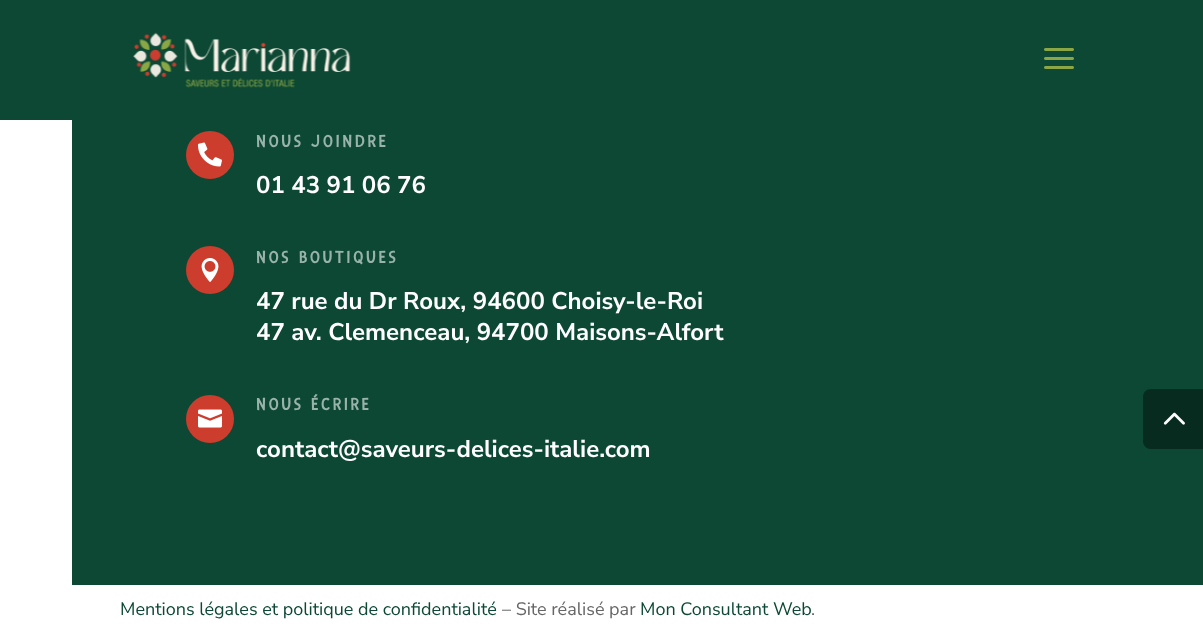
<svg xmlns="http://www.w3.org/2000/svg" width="1203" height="635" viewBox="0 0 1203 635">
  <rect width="100%" height="100%" fill="rgb(255,255,255)"/>
  <rect x="0" y="0" width="1203" height="120" fill="rgb(12,72,52)"/>
  <image x="133" y="32" width="218" height="56" href="pic1.png"/>
  <image x="1044" y="48" width="30" height="21" href="pic2.png"/>
  <rect x="72" y="120" width="1131" height="465" fill="rgb(12,72,52)"/>
  <circle cx="210" cy="155" r="24" fill="rgb(205,61,46)"/>
  <image x="198" y="142" width="24" height="25" href="pic3.png"/>
  <text x="256" y="147" font-family="Fresca" font-size="18" font-weight="bold" letter-spacing="3" fill="rgb(153,178,170)">NOUS JOINDRE</text>
  <text x="256" y="193" font-family="Nunito Sans" font-size="24" font-weight="bold" fill="rgb(255,255,255)">01 43 91 06 76</text>
  <circle cx="210" cy="270" r="24" fill="rgb(205,61,46)"/>
  <image x="201" y="258" width="18" height="24" href="pic4.png"/>
  <text x="256" y="263" font-family="Fresca" font-size="18" font-weight="bold" letter-spacing="3" fill="rgb(153,178,170)">NOS BOUTIQUES</text>
  <g font-family="Nunito Sans" font-size="24" font-weight="bold" fill="rgb(255,255,255)">
    <text>
      <tspan x="256" y="309">47 rue du Dr Roux, 94600 Choisy-le-Roi</tspan>
      <tspan x="256" y="340">47 av. Clemenceau, 94700 Maisons-Alfort</tspan>
    </text>
  </g>
  <circle cx="210" cy="419" r="24" fill="rgb(205,61,46)"/>
  <image x="198" y="409" width="24" height="19" href="pic5.png"/>
  <text x="256" y="410" font-family="Fresca" font-size="18" font-weight="bold" letter-spacing="3" fill="rgb(153,178,170)">NOUS ÉCRIRE</text>
  <text x="256" y="457" font-family="Nunito Sans" font-size="24" font-weight="bold" fill="rgb(255,255,255)">contact@saveurs-delices-italie.com</text>
  <text x="120" y="615" font-family="Nunito Sans" font-size="18" fill="rgb(12,72,52)">Mentions légales et politique de confidentialité</text>
  <text x="502" y="615" font-family="Nunito Sans" font-size="18" fill="rgb(102,102,102)">– Site réalisé par</text>
  <text x="640" y="615" font-family="Nunito Sans" font-size="18" fill="rgb(12,72,52)">Mon Consultant Web</text>
  <text x="811" y="615" font-family="Nunito Sans" font-size="18" fill="rgb(102,102,102)">.</text>
  <path d="M1151 389H1203V449H1151C1146.5 449 1143 445.5 1143 441V397C1143 392.5 1146.5 389 1151 389Z" fill="rgb(7,43,31)"/>
  <image x="1163" y="412" width="22" height="13" href="pic6.png"/>
</svg>
